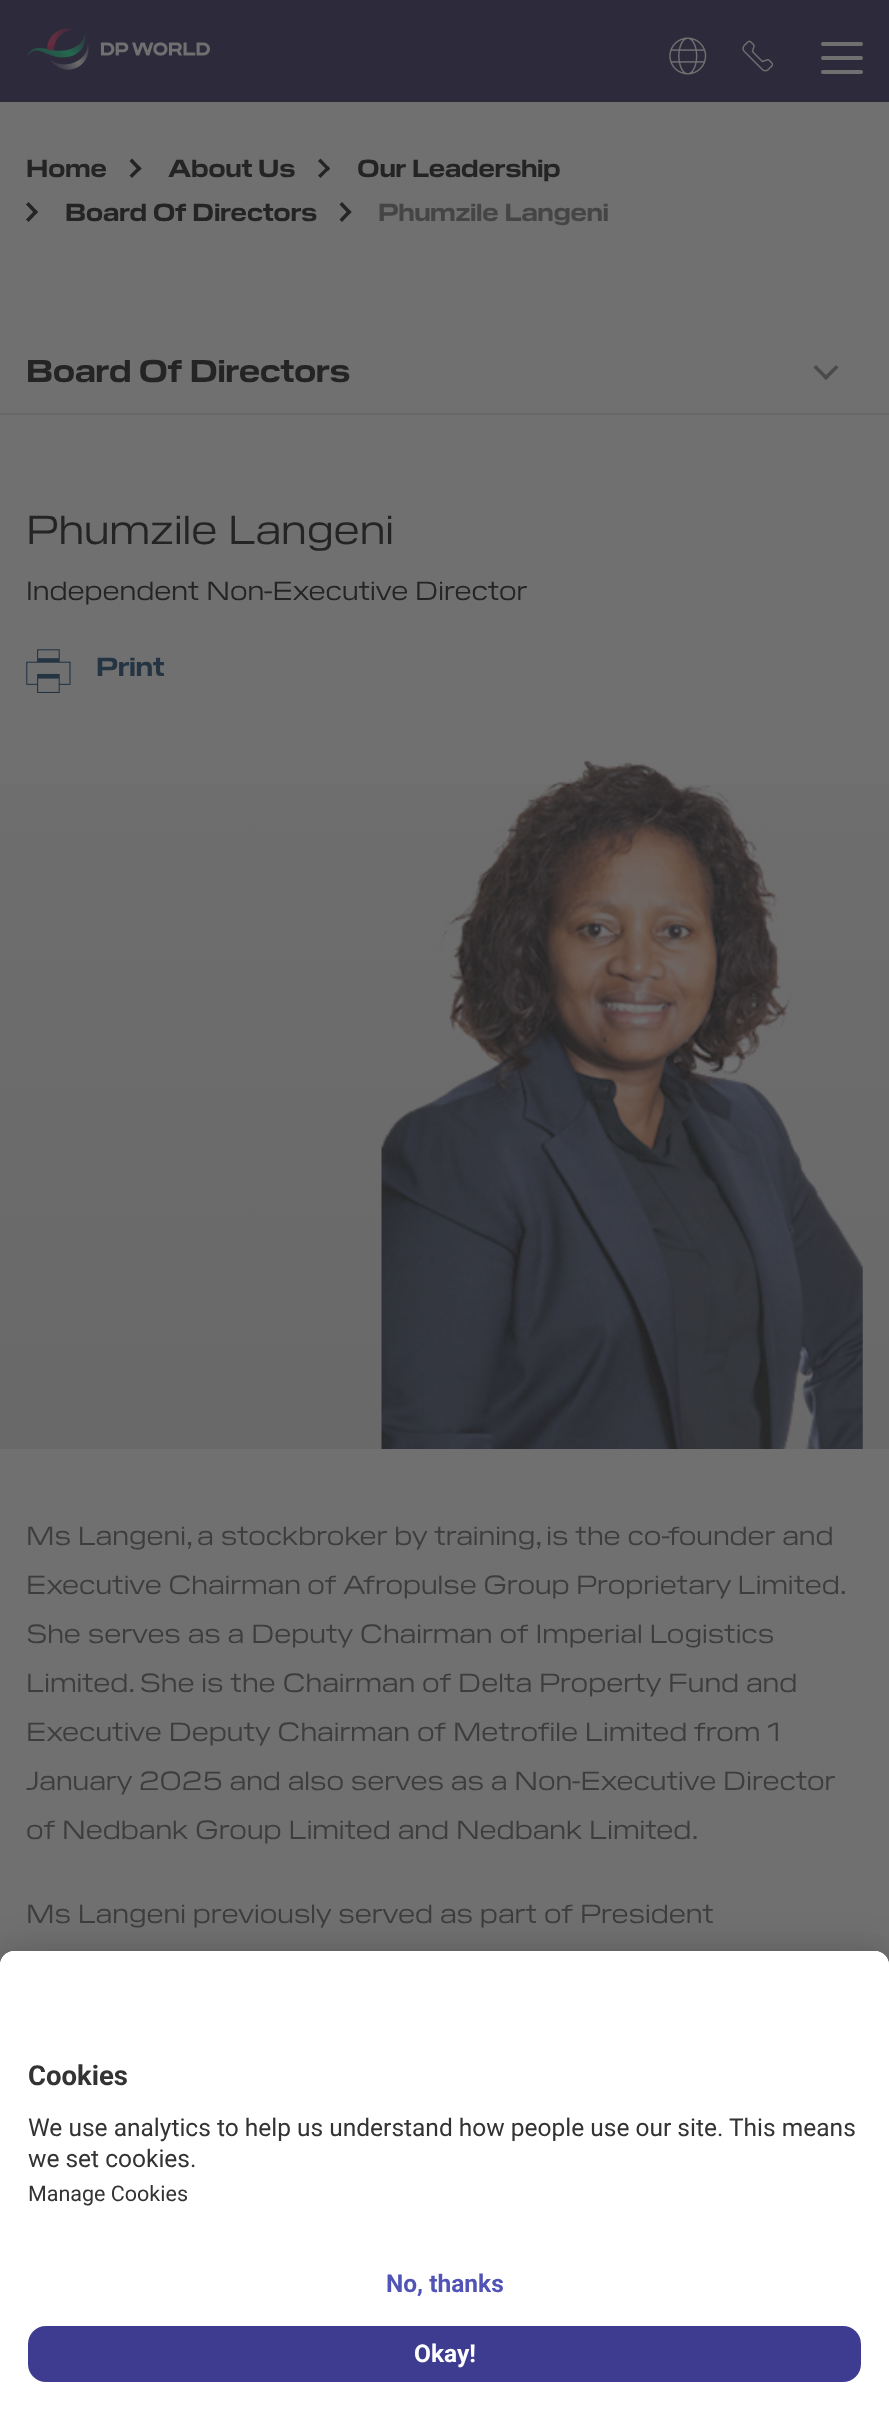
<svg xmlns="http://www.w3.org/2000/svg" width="889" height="2430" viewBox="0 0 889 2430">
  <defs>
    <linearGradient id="g1" gradientUnits="userSpaceOnUse" x1="444" y1="415" x2="445" y2="1449"><stop offset="0" stop-color="rgb(112,112,112)"/><stop offset="1" stop-color="rgb(105,105,105)"/></linearGradient>
    <linearGradient id="g2" gradientUnits="userSpaceOnUse" x1="-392" y1="415" x2="-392" y2="1449"><stop offset="0" stop-color="rgb(112,112,112)"/><stop offset="1" stop-color="rgb(105,105,105)"/></linearGradient>
    <linearGradient id="g3" gradientUnits="userSpaceOnUse" x1="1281" y1="415" x2="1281" y2="1449"><stop offset="0" stop-color="rgb(112,112,112)"/><stop offset="1" stop-color="rgb(105,105,105)"/></linearGradient>
  </defs>
  <rect width="100%" height="100%" fill="rgb(112,112,112)"/>
  <rect x="0" y="0" width="889" height="102" fill="rgb(45,42,60)"/>
  <image x="26" y="28" width="184" height="42" href="pic1.png"/>
  <image x="669" y="37" width="38" height="38" href="pic2.png"/>
  <image x="742" y="40" width="32" height="32" href="pic3.png"/>
  <rect x="821" y="42" width="42" height="4" rx="2" fill="rgb(112,112,112)"/>
  <rect x="821" y="56" width="42" height="4" rx="2" fill="rgb(112,112,112)"/>
  <rect x="821" y="70" width="42" height="4" rx="2" fill="rgb(112,112,112)"/>
  <text x="26" y="177" font-family="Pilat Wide" font-size="24.5" font-weight="bold" fill="rgb(36,36,36)">Home</text>
  <path d="M129.5 161L132 158.5L141.5 168.5L139 171Z" fill="rgb(36,36,36)"/>
  <path d="M129.5 175.5L139 166L141.5 168.5L132 178Z" fill="rgb(36,36,36)"/>
  <text x="168" y="177" font-family="Pilat Wide" font-size="24.5" font-weight="bold" fill="rgb(36,36,36)">About Us</text>
  <path d="M318 161L320.5 158.5L330 168.5L328 171Z" fill="rgb(36,36,36)"/>
  <path d="M318 175.5L328 166L330 168.5L320.5 178Z" fill="rgb(36,36,36)"/>
  <text x="357" y="177" font-family="Pilat Wide" font-size="24.5" font-weight="bold" fill="rgb(36,36,36)">Our Leadership</text>
  <path d="M26 204.5L28.5 202L38 212L35.5 214.5Z" fill="rgb(36,36,36)"/>
  <path d="M26 219.5L35.5 209.5L38 212L28.5 222Z" fill="rgb(36,36,36)"/>
  <text x="65" y="221" font-family="Pilat Wide" font-size="24.5" font-weight="bold" fill="rgb(36,36,36)">Board Of Directors</text>
  <path d="M339.5 204.5L342 202L351.5 212L349 214.5Z" fill="rgb(36,36,36)"/>
  <path d="M339.5 219.5L349 209.5L351.5 212L342 222Z" fill="rgb(36,36,36)"/>
  <text x="378" y="221" font-family="Pilat Wide" font-size="24.5" font-weight="bold" fill="rgb(69,69,70)">Phumzile Langeni</text>
  <rect x="0" y="413" width="889" height="2" fill="rgb(104,104,104)"/>
  <text x="26" y="382" font-family="Pilat Wide" font-size="31.5" font-weight="bold" fill="rgb(36,36,36)">Board Of Directors</text>
  <path d="M823.5 377.5L836 365L838.5 367.5L826 380Z" fill="rgb(74,74,74)"/>
  <path d="M813.5 367.5L816 365L828.5 377.5L826 380Z" fill="rgb(74,74,74)"/>
  <rect x="26" y="784" width="837" height="665" fill="url(#g1)"/>
  <text x="26" y="544" font-family="Pilat Wide" font-size="40.25" fill="rgb(36,36,36)">Phumzile Langeni</text>
  <text x="26" y="600" font-family="Pilat Wide" font-size="26.25" fill="rgb(36,36,36)">Independent Non-Executive Director</text>
  <image x="26" y="649" width="45" height="44" href="pic4.png"/>
  <text x="96" y="676" font-family="Pilat Wide" font-size="26.25" font-weight="bold" fill="rgb(36,52,66)">Print</text>
  <rect x="0" y="784" width="26" height="665" fill="url(#g2)"/>
  <image x="381" y="760" width="482" height="689" href="pic5.png"/>
  <rect x="863" y="784" width="26" height="665" fill="url(#g3)"/>
  <g font-family="Pilat Wide" font-size="26.25" fill="rgb(61,61,61)">
    <text>
      <tspan x="26" y="1545">Ms Langeni, a stockbroker by training, is the co-founder and</tspan>
      <tspan x="26" y="1594" word-spacing="-0.5">Executive Chairman of Afropulse Group Proprietary Limited.</tspan>
      <tspan x="26" y="1643">She serves as a Deputy Chairman of Imperial Logistics</tspan>
      <tspan x="26" y="1692">Limited. She is the Chairman of Delta Property Fund and</tspan>
      <tspan x="26" y="1741">Executive Deputy Chairman of Metrofile Limited from 1</tspan>
      <tspan x="26" y="1790">January 2025 and also serves as a Non-Executive Director</tspan>
      <tspan x="26" y="1839">of Nedbank Group Limited and Nedbank Limited.</tspan>
    </text>
    <text x="26" y="1923">Ms Langeni previously served as part of President</text>
  </g>
  <rect x="0" y="1986" width="889" height="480" rx="14" fill="rgba(0,0,0,0.3)" filter="blur(24.5px)"/>
  <rect x="0" y="1960" width="889" height="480" rx="14" fill="rgba(0,0,0,0.22)" filter="blur(23px)"/>
  <path d="M14 1951H875C882.5 1951 889 1957.5 889 1965V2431H0V1965C0 1957.5 6.5 1951 14 1951Z" fill="rgb(255,255,255)"/>
  <path d="M14 1951H875C882.5 1951 889 1957.5 889 1965V2235H0V1965C0 1957.5 6.5 1951 14 1951Z" fill="rgb(255,255,255)"/>
  <text x="28" y="2085" font-family="Roboto" font-size="27.5" font-weight="bold" fill="rgb(51,51,51)">Cookies</text>
  <g font-family="Roboto" font-size="24.5" fill="rgb(51,51,51)">
    <text>
      <tspan x="28" y="2136">We use analytics to help us understand how people use our site. This means</tspan>
      <tspan x="28" y="2167">we set cookies.</tspan>
    </text>
  </g>
  <text x="28" y="2201" font-family="Roboto" font-size="21.5" fill="rgb(51,51,51)">Manage Cookies</text>
  <text x="386" y="2292" font-family="Roboto" font-size="24.5" font-weight="bold" fill="rgb(81,84,182)">No, thanks</text>
  <rect x="28" y="2326" width="833" height="56" rx="18" fill="rgb(62,60,144)"/>
  <text x="414" y="2362" font-family="Roboto" font-size="24.5" font-weight="bold" fill="rgb(255,255,255)">Okay!</text>
</svg>
